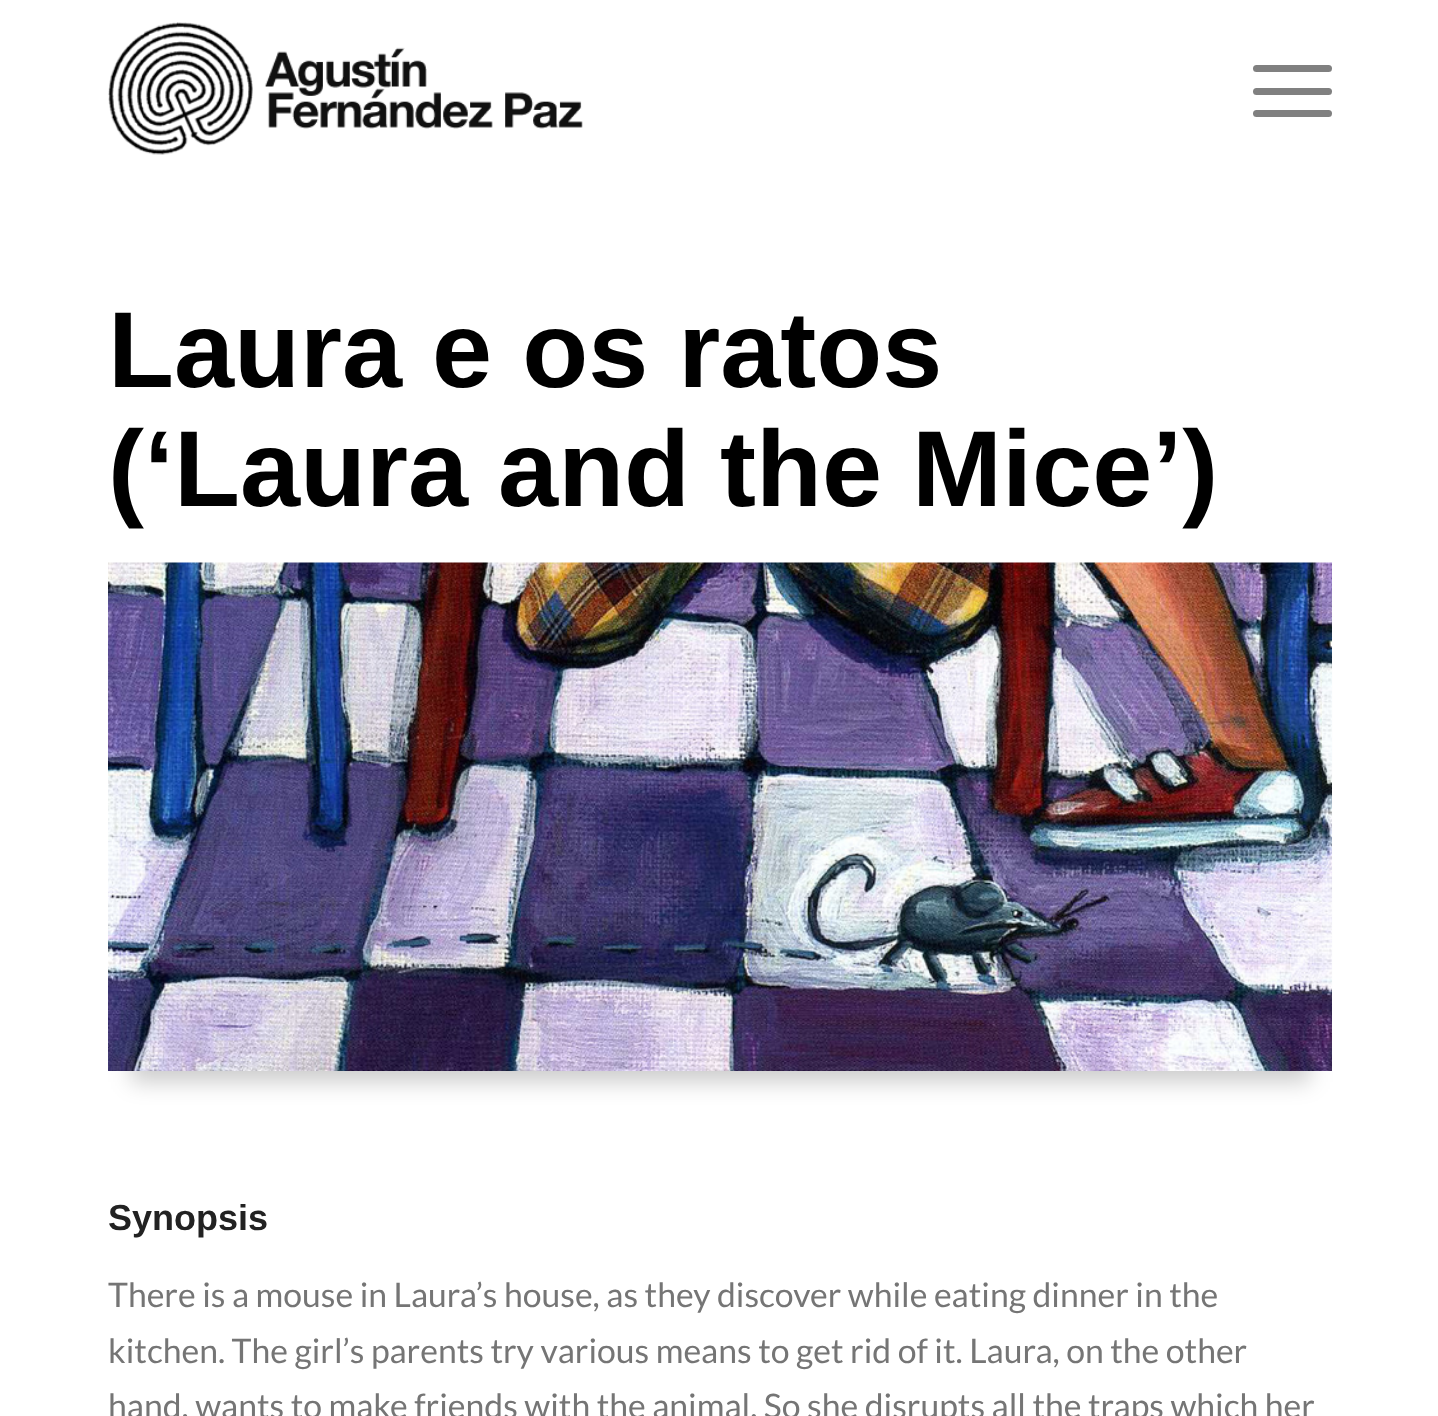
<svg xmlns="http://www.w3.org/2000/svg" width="1438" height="1416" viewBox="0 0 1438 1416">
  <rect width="100%" height="100%" fill="rgb(255,255,255)"/>
  <image x="108" y="22" width="475" height="133" href="pic1.png"/>
  <rect x="1253" y="88" width="79" height="7" rx="3.5" fill="rgb(128,128,128)"/>
  <rect x="1253" y="65" width="79" height="7" rx="3.5" fill="rgb(128,128,128)"/>
  <rect x="1253" y="110" width="79" height="7" rx="3.5" fill="rgb(128,128,128)"/>
  <g font-family="Liberation Sans" font-size="108" font-weight="bold" fill="rgb(0,0,0)">
    <text>
      <tspan x="108" y="387">Laura e os ratos</tspan>
      <tspan x="108" y="506">(‘Laura and the Mice’)</tspan>
    </text>
  </g>
  <rect x="131" y="619" width="1179" height="463" fill="rgba(0,0,0,0.2)" filter="blur(11px)"/>
  <image x="108" y="562" width="1224" height="509" href="pic2.png"/>
  <text x="108" y="1230" font-family="Liberation Sans" font-size="36" font-weight="bold" fill="rgb(34,34,34)">Synopsis</text>
  <g font-family="Lato" font-size="33.75" fill="rgb(117,117,117)">
    <text>
      <tspan x="108" y="1307">There is a mouse in Laura’s house, as they discover while eating dinner in the</tspan>
      <tspan x="108" y="1363">kitchen. The girl’s parents try various means to get rid of it. Laura, on the other</tspan>
      <tspan x="108" y="1418">hand, wants to make friends with the animal. So she disrupts all the traps which her</tspan>
    </text>
  </g>
</svg>
